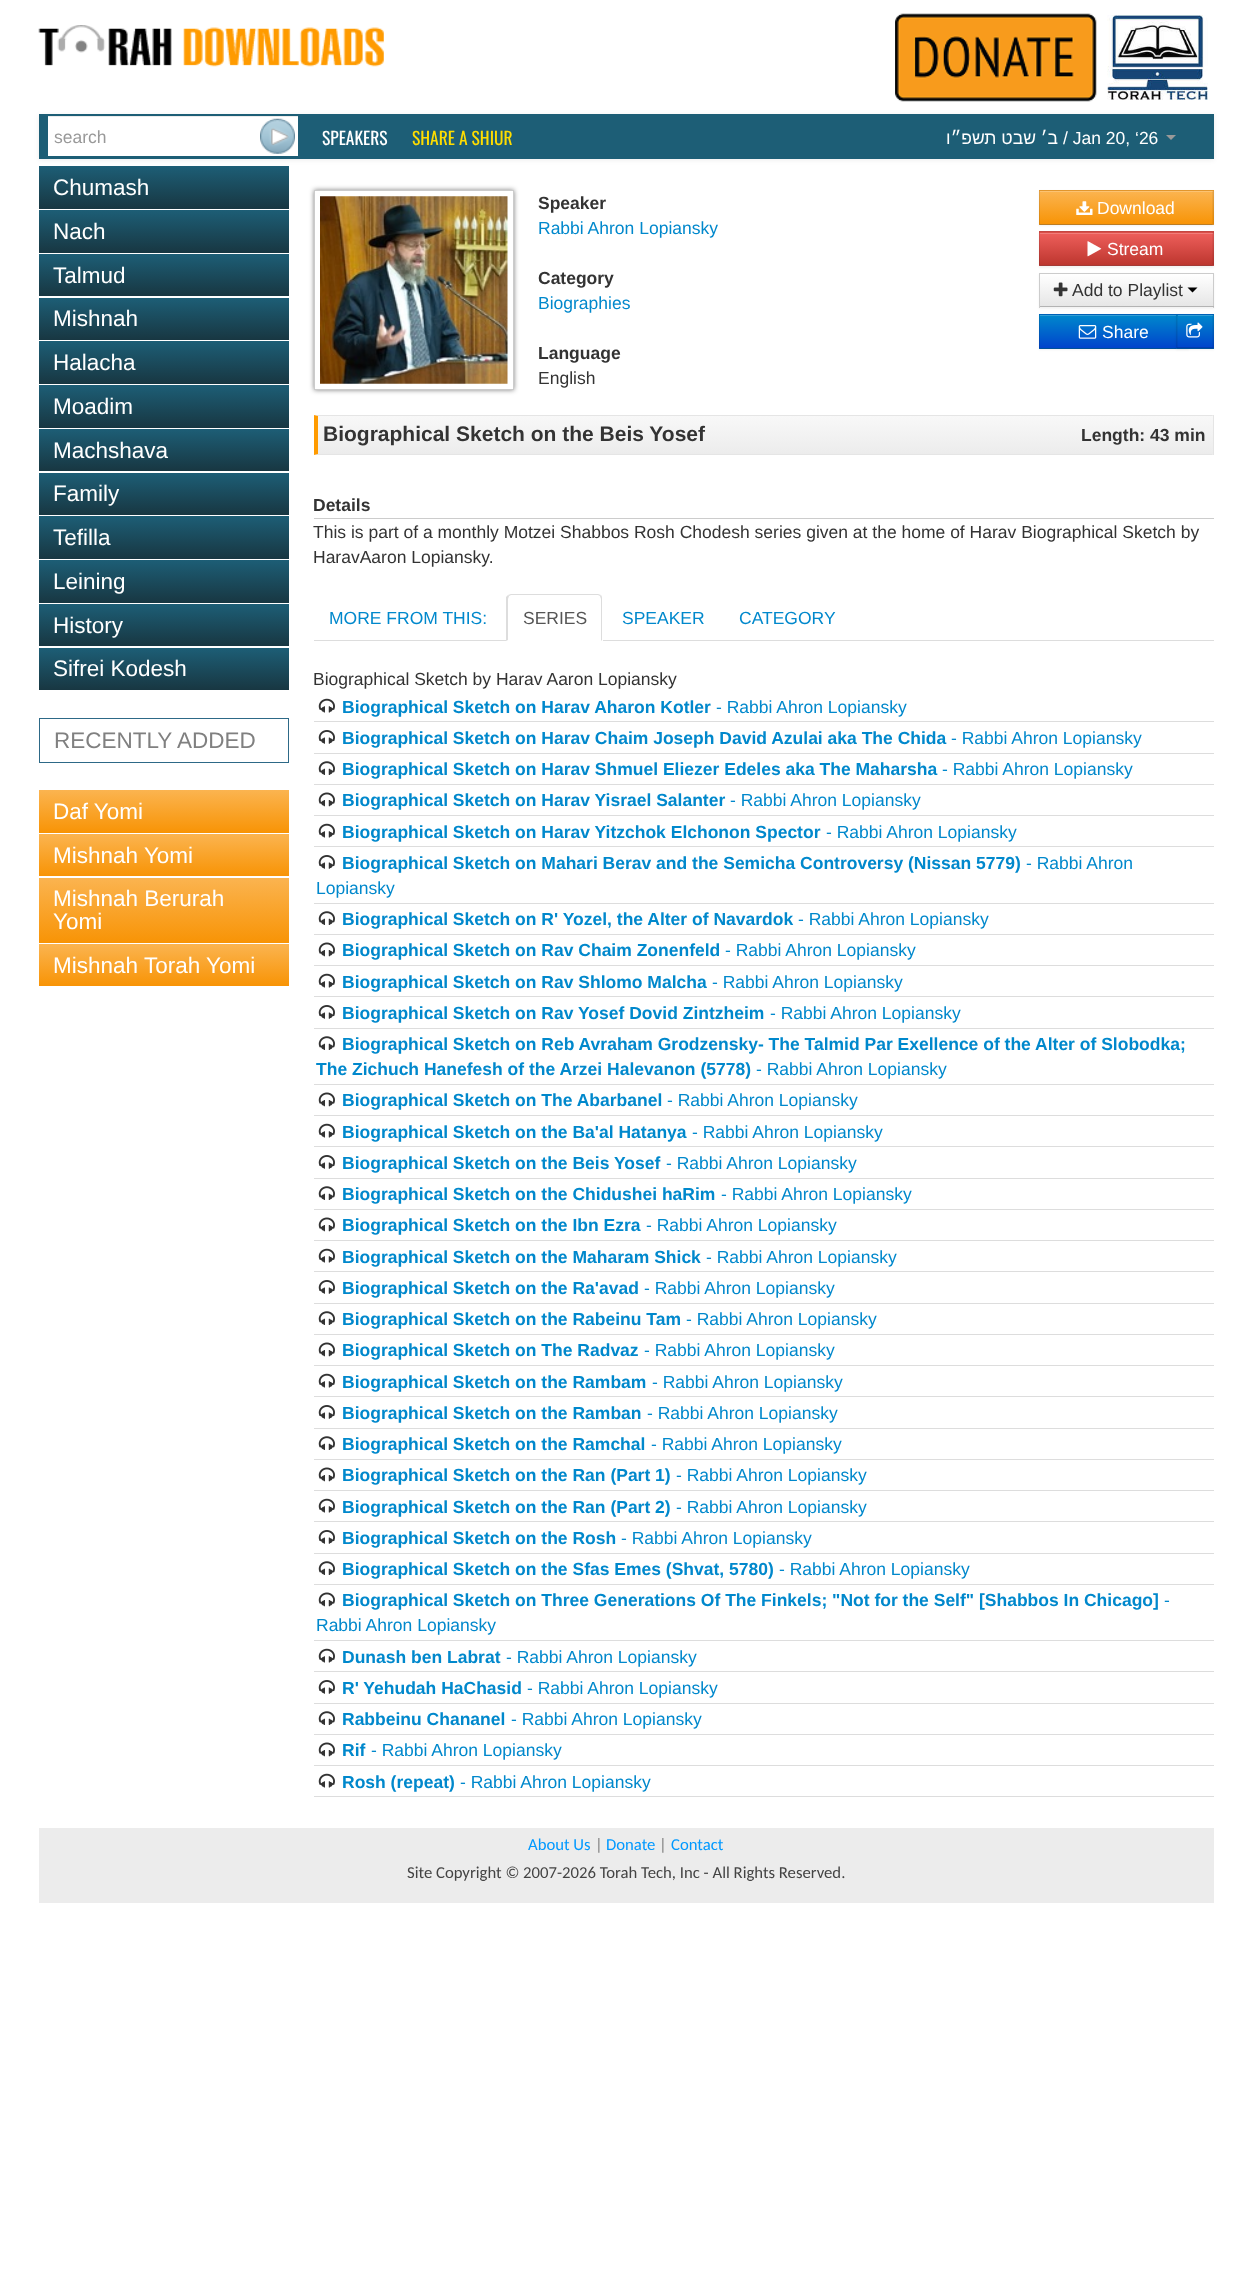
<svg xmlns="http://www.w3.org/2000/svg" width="1251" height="2284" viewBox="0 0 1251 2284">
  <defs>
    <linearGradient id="g1" gradientUnits="userSpaceOnUse" x1="164" y1="166" x2="164" y2="209"><stop offset="0" stop-color="rgb(29,94,118)"/><stop offset="0.99" stop-color="rgb(24,55,66)"/></linearGradient>
    <linearGradient id="g2" gradientUnits="userSpaceOnUse" x1="164" y1="210" x2="164" y2="253"><stop offset="0" stop-color="rgb(29,94,118)"/><stop offset="0.99" stop-color="rgb(24,55,66)"/></linearGradient>
    <linearGradient id="g3" gradientUnits="userSpaceOnUse" x1="164" y1="254" x2="164" y2="296"><stop offset="0" stop-color="rgb(29,94,118)"/><stop offset="0.99" stop-color="rgb(24,55,66)"/></linearGradient>
    <linearGradient id="g4" gradientUnits="userSpaceOnUse" x1="164" y1="298" x2="164" y2="340"><stop offset="0" stop-color="rgb(29,94,118)"/><stop offset="0.99" stop-color="rgb(24,55,66)"/></linearGradient>
    <linearGradient id="g5" gradientUnits="userSpaceOnUse" x1="164" y1="341" x2="164" y2="384"><stop offset="0" stop-color="rgb(29,94,118)"/><stop offset="0.99" stop-color="rgb(24,55,66)"/></linearGradient>
    <linearGradient id="g6" gradientUnits="userSpaceOnUse" x1="164" y1="385" x2="164" y2="428"><stop offset="0" stop-color="rgb(29,94,118)"/><stop offset="0.99" stop-color="rgb(24,55,66)"/></linearGradient>
    <linearGradient id="g7" gradientUnits="userSpaceOnUse" x1="164" y1="429" x2="164" y2="471"><stop offset="0" stop-color="rgb(29,94,118)"/><stop offset="0.99" stop-color="rgb(24,55,66)"/></linearGradient>
    <linearGradient id="g8" gradientUnits="userSpaceOnUse" x1="164" y1="473" x2="164" y2="515"><stop offset="0" stop-color="rgb(29,94,118)"/><stop offset="0.99" stop-color="rgb(24,55,66)"/></linearGradient>
    <linearGradient id="g9" gradientUnits="userSpaceOnUse" x1="164" y1="516" x2="164" y2="559"><stop offset="0" stop-color="rgb(29,94,118)"/><stop offset="0.99" stop-color="rgb(24,55,66)"/></linearGradient>
    <linearGradient id="g10" gradientUnits="userSpaceOnUse" x1="164" y1="560" x2="164" y2="603"><stop offset="0" stop-color="rgb(29,94,118)"/><stop offset="0.99" stop-color="rgb(24,55,66)"/></linearGradient>
    <linearGradient id="g11" gradientUnits="userSpaceOnUse" x1="164" y1="604" x2="164" y2="646"><stop offset="0" stop-color="rgb(29,94,118)"/><stop offset="0.99" stop-color="rgb(24,55,66)"/></linearGradient>
    <linearGradient id="g12" gradientUnits="userSpaceOnUse" x1="164" y1="648" x2="164" y2="690"><stop offset="0" stop-color="rgb(29,94,118)"/><stop offset="0.99" stop-color="rgb(24,55,66)"/></linearGradient>
    <linearGradient id="g13" gradientUnits="userSpaceOnUse" x1="164" y1="790" x2="164" y2="833"><stop offset="0" stop-color="rgb(251,180,80)"/><stop offset="0.99" stop-color="rgb(248,148,6)"/></linearGradient>
    <linearGradient id="g14" gradientUnits="userSpaceOnUse" x1="164" y1="834" x2="164" y2="876"><stop offset="0" stop-color="rgb(251,180,80)"/><stop offset="0.99" stop-color="rgb(248,148,6)"/></linearGradient>
    <linearGradient id="g15" gradientUnits="userSpaceOnUse" x1="164" y1="878" x2="164" y2="943"><stop offset="0" stop-color="rgb(251,180,80)"/><stop offset="0.99" stop-color="rgb(248,148,6)"/></linearGradient>
    <linearGradient id="g16" gradientUnits="userSpaceOnUse" x1="164" y1="944" x2="164" y2="986"><stop offset="0" stop-color="rgb(251,180,80)"/><stop offset="0.99" stop-color="rgb(248,148,6)"/></linearGradient>
    <clipPath id="clip1"><path d="M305 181H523V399H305ZM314 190H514V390H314Z" clip-rule="evenodd"/></clipPath>
    <linearGradient id="g17" gradientUnits="userSpaceOnUse" x1="1126" y1="191" x2="1126" y2="224"><stop offset="0" stop-color="rgb(251,180,80)"/><stop offset="1" stop-color="rgb(248,148,6)"/></linearGradient>
    <linearGradient id="g18" gradientUnits="userSpaceOnUse" x1="1126" y1="233" x2="1126" y2="265"><stop offset="0" stop-color="rgb(238,95,91)"/><stop offset="1" stop-color="rgb(189,54,47)"/></linearGradient>
    <linearGradient id="g19" gradientUnits="userSpaceOnUse" x1="1126" y1="274" x2="1126" y2="306"><stop offset="0" stop-color="rgb(255,255,255)"/><stop offset="1" stop-color="rgb(230,230,230)"/></linearGradient>
    <linearGradient id="g20" gradientUnits="userSpaceOnUse" x1="1114" y1="315" x2="1114" y2="348"><stop offset="0" stop-color="rgb(0,136,204)"/><stop offset="1" stop-color="rgb(0,68,204)"/></linearGradient>
    <linearGradient id="g21" gradientUnits="userSpaceOnUse" x1="1195" y1="315" x2="1195" y2="348"><stop offset="0" stop-color="rgb(0,136,204)"/><stop offset="1" stop-color="rgb(0,68,204)"/></linearGradient>
    <linearGradient id="g22" gradientUnits="userSpaceOnUse" x1="765" y1="416" x2="765" y2="454"><stop offset="0" stop-color="rgb(248,248,248)"/><stop offset="1" stop-color="rgb(236,236,236)"/></linearGradient>
  </defs>
  <rect width="100%" height="100%" fill="rgb(255,255,255)"/>
  <image x="38" y="25" width="346" height="42" href="pic1.png"/>
  <image x="895" y="13" width="202" height="89" href="pic2.png"/>
  <image x="1107" y="15" width="101" height="85" href="pic3.png"/>
  <rect x="39" y="115" width="1175" height="45" fill="rgba(0,0,0,0.07)" filter="blur(2.5px)"/>
  <rect x="39" y="114" width="1175" height="45" fill="rgb(29,94,118)"/>
  <rect x="48" y="117" width="250" height="39" fill="rgb(255,255,255)"/>
  <rect x="48" y="116" width="250" height="1" fill="rgb(236,236,236)"/>
  <text x="54" y="143" font-family="Liberation Sans" font-size="17.5" fill="rgb(153,153,153)">search</text>
  <image x="260" y="118" width="35" height="36" href="pic4.png"/>
  <text x="322" y="145" font-family="Oswald" font-size="17.5" fill="rgb(255,255,255)">SPEAKERS</text>
  <text x="412" y="145" font-family="Oswald" font-size="17.5" fill="rgb(255,221,0)">SHARE A SHIUR</text>
  <text x="1058" y="144" font-family="Liberation Sans" font-size="17.5" direction="rtl" fill="rgb(255,255,255)">ב׳ שבט תשפ״ו</text>
  <text x="1063" y="144" font-family="Liberation Sans" font-size="17.5" fill="rgb(255,255,255)">/ Jan 20, ‘26</text>
  <path d="M1166 135H1176L1171 140Z" fill="rgb(153,153,153)"/>
  <rect x="39" y="166" width="250" height="43" fill="url(#g1)"/>
  <text x="53" y="195" font-family="Liberation Sans" font-size="22.5" fill="rgb(255,255,255)">Chumash</text>
  <rect x="39" y="210" width="250" height="43" fill="url(#g2)"/>
  <text x="53" y="239" font-family="Liberation Sans" font-size="22.5" fill="rgb(255,255,255)">Nach</text>
  <rect x="39" y="254" width="250" height="42" fill="url(#g3)"/>
  <text x="53" y="283" font-family="Liberation Sans" font-size="22.5" fill="rgb(255,255,255)">Talmud</text>
  <rect x="39" y="298" width="250" height="42" fill="url(#g4)"/>
  <text x="53" y="326" font-family="Liberation Sans" font-size="22.5" fill="rgb(255,255,255)">Mishnah</text>
  <rect x="39" y="341" width="250" height="43" fill="url(#g5)"/>
  <text x="53" y="370" font-family="Liberation Sans" font-size="22.5" fill="rgb(255,255,255)">Halacha</text>
  <rect x="39" y="385" width="250" height="43" fill="url(#g6)"/>
  <text x="53" y="414" font-family="Liberation Sans" font-size="22.5" fill="rgb(255,255,255)">Moadim</text>
  <rect x="39" y="429" width="250" height="42" fill="url(#g7)"/>
  <text x="53" y="458" font-family="Liberation Sans" font-size="22.5" fill="rgb(255,255,255)">Machshava</text>
  <rect x="39" y="473" width="250" height="42" fill="url(#g8)"/>
  <text x="53" y="501" font-family="Liberation Sans" font-size="22.5" fill="rgb(255,255,255)">Family</text>
  <rect x="39" y="516" width="250" height="43" fill="url(#g9)"/>
  <text x="53" y="545" font-family="Liberation Sans" font-size="22.5" fill="rgb(255,255,255)">Tefilla</text>
  <rect x="39" y="560" width="250" height="43" fill="url(#g10)"/>
  <text x="53" y="589" font-family="Liberation Sans" font-size="22.5" fill="rgb(255,255,255)">Leining</text>
  <rect x="39" y="604" width="250" height="42" fill="url(#g11)"/>
  <text x="53" y="633" font-family="Liberation Sans" font-size="22.5" fill="rgb(255,255,255)">History</text>
  <rect x="39" y="648" width="250" height="42" fill="url(#g12)"/>
  <text x="53" y="676" font-family="Liberation Sans" font-size="22.5" fill="rgb(255,255,255)">Sifrei Kodesh</text>
  <rect x="39.5" y="718.5" width="249" height="44" fill="none" stroke="rgb(45,105,135)"/>
  <text x="54" y="748" font-family="Liberation Sans" font-size="22.5" fill="rgb(128,128,128)">RECENTLY ADDED</text>
  <rect x="39" y="790" width="250" height="43" fill="url(#g13)"/>
  <text x="53" y="819" font-family="Liberation Sans" font-size="22.5" fill="rgb(255,255,255)">Daf Yomi</text>
  <rect x="39" y="834" width="250" height="42" fill="url(#g14)"/>
  <text x="53" y="863" font-family="Liberation Sans" font-size="22.5" fill="rgb(255,255,255)">Mishnah Yomi</text>
  <rect x="39" y="878" width="250" height="65" fill="url(#g15)"/>
  <g font-family="Liberation Sans" font-size="22.5" fill="rgb(255,255,255)">
    <text>
      <tspan x="53" y="906">Mishnah Berurah</tspan>
      <tspan x="53" y="929">Yomi</tspan>
    </text>
  </g>
  <rect x="39" y="944" width="250" height="42" fill="url(#g16)"/>
  <text x="53" y="973" font-family="Liberation Sans" font-size="22.5" fill="rgb(255,255,255)">Mishnah Torah Yomi</text>
  <g clip-path="url(#clip1)">
    <rect x="314" y="190" width="200" height="200" fill="rgba(0,0,0,0.5)" filter="blur(2.5px)"/>
  </g>
  <rect x="314.5" y="190.5" width="199" height="199" fill="none" stroke="rgb(203,203,203)"/>
  <image x="320" y="196" width="188" height="188" href="pic5.png"/>
  <text x="538" y="209" font-family="Liberation Sans" font-size="17.5" font-weight="bold" fill="rgb(51,51,51)">Speaker</text>
  <text x="538" y="234" font-family="Liberation Sans" font-size="17.5" fill="rgb(0,136,204)">Rabbi Ahron Lopiansky</text>
  <text x="538" y="284" font-family="Liberation Sans" font-size="17.5" font-weight="bold" fill="rgb(51,51,51)">Category</text>
  <text x="538" y="309" font-family="Liberation Sans" font-size="17.5" fill="rgb(0,136,204)">Biographies</text>
  <text x="538" y="359" font-family="Liberation Sans" font-size="17.5" font-weight="bold" fill="rgb(51,51,51)">Language</text>
  <text x="538" y="384" font-family="Liberation Sans" font-size="17.5" fill="rgb(51,51,51)">English</text>
  <rect x="1039" y="191" width="175" height="35" fill="rgba(0,0,0,0.05)" filter="blur(1px)"/>
  <rect x="1039" y="190" width="175" height="35" fill="rgb(250,167,50)"/>
  <rect x="1039" y="191" width="175" height="33" fill="url(#g17)"/>
  <rect x="1040" y="191" width="173" height="1" fill="rgb(252,195,114)"/>
  <path d="M1039 190H1214L1212 191H1040Z" fill="rgb(225,150,45)"/>
  <path d="M1214 190V225L1212.5 224V191Z" fill="rgba(0,0,0,0.1)"/>
  <path d="M1214 225H1039L1040 224H1212Z" fill="rgb(187,125,37)"/>
  <path d="M1039 225V190L1040 191V224Z" fill="rgba(0,0,0,0.1)"/>
  <image x="1076" y="201" width="17" height="14" href="pic6.png"/>
  <text x="1097" y="214" font-family="Liberation Sans" font-size="17.5" fill="rgb(255,255,255)">Download</text>
  <rect x="1039" y="233" width="175" height="35" fill="rgba(0,0,0,0.05)" filter="blur(1px)"/>
  <rect x="1039" y="231" width="175" height="35" fill="rgb(218,79,73)"/>
  <rect x="1039" y="233" width="175" height="32" fill="url(#g18)"/>
  <rect x="1040" y="233" width="173" height="1" fill="rgb(241,126,123)"/>
  <path d="M1039 231H1214L1212 232H1040Z" fill="rgb(196,71,66)"/>
  <path d="M1214 231V266L1212.5 265V232.5Z" fill="rgba(0,0,0,0.1)"/>
  <path d="M1214 266H1039L1040 265H1212Z" fill="rgb(163,59,55)"/>
  <path d="M1039 266V231L1040 232.5V265Z" fill="rgba(0,0,0,0.1)"/>
  <image x="1087" y="241" width="15" height="16" href="pic7.png"/>
  <text x="1107" y="255" font-family="Liberation Sans" font-size="17.5" fill="rgb(255,255,255)">Stream</text>
  <rect x="1039" y="274" width="175" height="35" fill="rgba(0,0,0,0.05)" filter="blur(1px)"/>
  <rect x="1040" y="274" width="173" height="32" fill="url(#g19)"/>
  <rect x="1039" y="273" width="175" height="1" fill="rgb(204,204,204)"/>
  <rect x="1213" y="273" width="1" height="35" fill="rgb(204,204,204)"/>
  <rect x="1039" y="306" width="175" height="1" fill="rgb(179,179,179)"/>
  <rect x="1039" y="273" width="1" height="35" fill="rgb(204,204,204)"/>
  <image x="1053" y="282" width="15" height="15" href="pic8.png"/>
  <text x="1072" y="296" font-family="Liberation Sans" font-size="17.5" fill="rgb(51,51,51)">Add to Playlist</text>
  <path d="M1187.5 287.5H1197.5L1192.5 292.5Z" fill="rgb(0,0,0)"/>
  <rect x="1039" y="315" width="150" height="35" fill="rgba(0,0,0,0.05)" filter="blur(1px)"/>
  <rect x="1039" y="314" width="137" height="35" fill="rgb(0,109,204)"/>
  <rect x="1039" y="315" width="137" height="33" fill="url(#g20)"/>
  <rect x="1040" y="315" width="136" height="1" fill="rgb(51,159,214)"/>
  <path d="M1039 314H1189L1188 315H1040Z" fill="rgb(0,98,184)"/>
  <path d="M1189 349H1039L1040 348H1188Z" fill="rgba(0,0,0,0.25)"/>
  <path d="M1039 349V314L1040 315V347.5Z" fill="rgba(0,0,0,0.1)"/>
  <image x="1078" y="325" width="19" height="14" href="pic9.png"/>
  <text x="1102" y="338" font-family="Liberation Sans" font-size="17.5" fill="rgb(255,255,255)">Share</text>
  <rect x="1176" y="315" width="38" height="35" fill="rgba(0,0,0,0.05)" filter="blur(1px)"/>
  <rect x="1176" y="314" width="38" height="35" fill="rgb(0,109,204)"/>
  <rect x="1176" y="315" width="38" height="33" fill="url(#g21)"/>
  <rect x="1178" y="315" width="35" height="1" fill="rgb(51,159,214)"/>
  <path d="M1176 314H1214L1212.5 315H1177.5Z" fill="rgb(0,98,184)"/>
  <path d="M1214 314V349L1212.5 347.5V315Z" fill="rgba(0,0,0,0.1)"/>
  <path d="M1214 349H1176L1177.5 347.5H1212.5Z" fill="rgba(0,0,0,0.25)"/>
  <path d="M1176 349V314L1177.5 315V347.5Z" fill="rgba(0,0,0,0.1)"/>
  <image x="1186" y="322" width="17" height="16" href="pic10.png"/>
  <rect x="318" y="416" width="895" height="38" fill="url(#g22)"/>
  <path d="M314 415H1214L1212 416H318Z" fill="rgb(229,229,229)"/>
  <rect x="1213" y="415" width="1" height="40" fill="rgb(229,229,229)"/>
  <path d="M1214 455H314L318 454H1212Z" fill="rgb(229,229,229)"/>
  <path d="M314 455V415L318 416V454Z" fill="rgb(255,155,0)"/>
  <text x="323" y="441" font-family="Liberation Sans" font-size="21" font-weight="bold" fill="rgb(51,51,51)">Biographical Sketch on the Beis Yosef</text>
  <g font-family="Liberation Sans" font-size="17.5" font-weight="bold" fill="rgb(51,51,51)">
    <text x="1081" y="441">Length: 43 min</text>
    <text x="313" y="511">Details</text>
  </g>
  <rect x="314" y="518" width="900" height="1" fill="rgb(204,204,204)"/>
  <g font-family="Liberation Sans" font-size="17.5" fill="rgb(51,51,51)">
    <text>
      <tspan x="313" y="538">This is part of a monthly Motzei Shabbos Rosh Chodesh series given at the home of Harav Biographical Sketch by</tspan>
      <tspan x="313" y="563">HaravAaron Lopiansky.</tspan>
    </text>
  </g>
  <rect x="314" y="640" width="900" height="1" fill="rgb(221,221,221)"/>
  <text x="329" y="624" font-family="Liberation Sans" font-size="17.5" fill="rgb(0,136,204)">MORE FROM THIS:</text>
  <path d="M511 594H598C601 594 603 596 603 599V641H506V599C506 596 508 594 511 594Z" fill="rgb(255,255,255)"/>
  <path d="M511 594L508 595L509 596L511 595H598L600 596L601 595C600 595 599 594 598 594Z" fill="rgb(221,221,221)"/>
  <path d="M602 641V599C602 598 602 596 601 595L600 596L601 599V640Z" fill="rgb(221,221,221)"/>
  <path d="M506 597L508 595L509 596L508 599V640L506 641Z" fill="rgb(221,221,221)"/>
  <text x="523" y="624" font-family="Liberation Sans" font-size="17.5" fill="rgb(85,85,85)">SERIES</text>
  <g font-family="Liberation Sans" font-size="17.5" fill="rgb(0,136,204)">
    <text x="622" y="624">SPEAKER</text>
    <text x="739" y="624">CATEGORY</text>
  </g>
  <text x="313" y="685" font-family="Liberation Sans" font-size="17.5" fill="rgb(51,51,51)">Biographical Sketch by Harav Aaron Lopiansky</text>
  <rect x="314" y="721" width="900" height="1" fill="rgb(221,221,221)"/>
  <image x="318" y="698" width="17" height="15" href="pic11.png"/>
  <text x="342" y="713" font-family="Liberation Sans" font-size="17.5" font-weight="bold" fill="rgb(0,136,204)">Biographical Sketch on Harav Aharon Kotler</text>
  <text x="716" y="713" font-family="Liberation Sans" font-size="17.5" fill="rgb(0,136,204)">- Rabbi Ahron Lopiansky</text>
  <rect x="314" y="753" width="900" height="1" fill="rgb(221,221,221)"/>
  <image x="318" y="730" width="17" height="14" href="pic12.png"/>
  <text x="342" y="744" font-family="Liberation Sans" font-size="17.5" font-weight="bold" fill="rgb(0,136,204)">Biographical Sketch on Harav Chaim Joseph David Azulai aka The Chida</text>
  <text x="951" y="744" font-family="Liberation Sans" font-size="17.5" fill="rgb(0,136,204)">- Rabbi Ahron Lopiansky</text>
  <rect x="314" y="784" width="900" height="1" fill="rgb(221,221,221)"/>
  <image x="318" y="761" width="17" height="14" href="pic13.png"/>
  <text x="342" y="775" font-family="Liberation Sans" font-size="17.5" font-weight="bold" fill="rgb(0,136,204)">Biographical Sketch on Harav Shmuel Eliezer Edeles aka The Maharsha</text>
  <text x="942" y="775" font-family="Liberation Sans" font-size="17.5" fill="rgb(0,136,204)">- Rabbi Ahron Lopiansky</text>
  <rect x="314" y="815" width="900" height="1" fill="rgb(221,221,221)"/>
  <image x="318" y="792" width="17" height="15" href="pic14.png"/>
  <text x="342" y="806" font-family="Liberation Sans" font-size="17.5" font-weight="bold" fill="rgb(0,136,204)">Biographical Sketch on Harav Yisrael Salanter</text>
  <text x="730" y="806" font-family="Liberation Sans" font-size="17.5" fill="rgb(0,136,204)">- Rabbi Ahron Lopiansky</text>
  <rect x="314" y="846" width="900" height="1" fill="rgb(221,221,221)"/>
  <image x="318" y="823" width="17" height="15" href="pic11.png"/>
  <text x="342" y="838" font-family="Liberation Sans" font-size="17.5" font-weight="bold" fill="rgb(0,136,204)">Biographical Sketch on Harav Yitzchok Elchonon Spector</text>
  <text x="826" y="838" font-family="Liberation Sans" font-size="17.5" fill="rgb(0,136,204)">- Rabbi Ahron Lopiansky</text>
  <rect x="314" y="903" width="900" height="1" fill="rgb(221,221,221)"/>
  <image x="318" y="855" width="17" height="14" href="pic12.png"/>
  <text x="342" y="869" font-family="Liberation Sans" font-size="17.5" font-weight="bold" fill="rgb(0,136,204)">Biographical Sketch on Mahari Berav and the Semicha Controversy (Nissan 5779)</text>
  <g font-family="Liberation Sans" font-size="17.5" fill="rgb(0,136,204)">
    <text x="1026" y="869">- Rabbi Ahron</text>
    <text x="316" y="894">Lopiansky</text>
  </g>
  <rect x="314" y="934" width="900" height="1" fill="rgb(221,221,221)"/>
  <image x="318" y="911" width="17" height="14" href="pic13.png"/>
  <text x="342" y="925" font-family="Liberation Sans" font-size="17.5" font-weight="bold" fill="rgb(0,136,204)">Biographical Sketch on R' Yozel, the Alter of Navardok</text>
  <text x="798" y="925" font-family="Liberation Sans" font-size="17.5" fill="rgb(0,136,204)">- Rabbi Ahron Lopiansky</text>
  <rect x="314" y="965" width="900" height="1" fill="rgb(221,221,221)"/>
  <image x="318" y="942" width="17" height="15" href="pic14.png"/>
  <text x="342" y="956" font-family="Liberation Sans" font-size="17.5" font-weight="bold" fill="rgb(0,136,204)">Biographical Sketch on Rav Chaim Zonenfeld</text>
  <text x="725" y="956" font-family="Liberation Sans" font-size="17.5" fill="rgb(0,136,204)">- Rabbi Ahron Lopiansky</text>
  <rect x="314" y="996" width="900" height="1" fill="rgb(221,221,221)"/>
  <image x="318" y="973" width="17" height="15" href="pic11.png"/>
  <text x="342" y="988" font-family="Liberation Sans" font-size="17.5" font-weight="bold" fill="rgb(0,136,204)">Biographical Sketch on Rav Shlomo Malcha</text>
  <text x="712" y="988" font-family="Liberation Sans" font-size="17.5" fill="rgb(0,136,204)">- Rabbi Ahron Lopiansky</text>
  <rect x="314" y="1028" width="900" height="1" fill="rgb(221,221,221)"/>
  <image x="318" y="1005" width="17" height="14" href="pic12.png"/>
  <text x="342" y="1019" font-family="Liberation Sans" font-size="17.5" font-weight="bold" fill="rgb(0,136,204)">Biographical Sketch on Rav Yosef Dovid Zintzheim</text>
  <text x="770" y="1019" font-family="Liberation Sans" font-size="17.5" fill="rgb(0,136,204)">- Rabbi Ahron Lopiansky</text>
  <rect x="314" y="1084" width="900" height="1" fill="rgb(221,221,221)"/>
  <image x="318" y="1036" width="17" height="14" href="pic13.png"/>
  <g font-family="Liberation Sans" font-size="17.5" font-weight="bold" fill="rgb(0,136,204)">
    <text x="342" y="1050">Biographical Sketch on Reb Avraham Grodzensky- The Talmid Par Exellence of the Alter of Slobodka;</text>
    <text x="316" y="1075">The Zichuch Hanefesh of the Arzei Halevanon (5778)</text>
  </g>
  <text x="756" y="1075" font-family="Liberation Sans" font-size="17.5" fill="rgb(0,136,204)">- Rabbi Ahron Lopiansky</text>
  <rect x="314" y="1115" width="900" height="1" fill="rgb(221,221,221)"/>
  <image x="318" y="1092" width="17" height="15" href="pic14.png"/>
  <text x="342" y="1106" font-family="Liberation Sans" font-size="17.5" font-weight="bold" fill="rgb(0,136,204)">Biographical Sketch on The Abarbanel</text>
  <text x="667" y="1106" font-family="Liberation Sans" font-size="17.5" fill="rgb(0,136,204)">- Rabbi Ahron Lopiansky</text>
  <rect x="314" y="1146" width="900" height="1" fill="rgb(221,221,221)"/>
  <image x="318" y="1123" width="17" height="15" href="pic11.png"/>
  <text x="342" y="1138" font-family="Liberation Sans" font-size="17.5" font-weight="bold" fill="rgb(0,136,204)">Biographical Sketch on the Ba'al Hatanya</text>
  <text x="692" y="1138" font-family="Liberation Sans" font-size="17.5" fill="rgb(0,136,204)">- Rabbi Ahron Lopiansky</text>
  <rect x="314" y="1178" width="900" height="1" fill="rgb(221,221,221)"/>
  <image x="318" y="1155" width="17" height="14" href="pic12.png"/>
  <text x="342" y="1169" font-family="Liberation Sans" font-size="17.5" font-weight="bold" fill="rgb(0,136,204)">Biographical Sketch on the Beis Yosef</text>
  <text x="666" y="1169" font-family="Liberation Sans" font-size="17.5" fill="rgb(0,136,204)">- Rabbi Ahron Lopiansky</text>
  <rect x="314" y="1209" width="900" height="1" fill="rgb(221,221,221)"/>
  <image x="318" y="1186" width="17" height="14" href="pic13.png"/>
  <text x="342" y="1200" font-family="Liberation Sans" font-size="17.5" font-weight="bold" fill="rgb(0,136,204)">Biographical Sketch on the Chidushei haRim</text>
  <text x="721" y="1200" font-family="Liberation Sans" font-size="17.5" fill="rgb(0,136,204)">- Rabbi Ahron Lopiansky</text>
  <rect x="314" y="1240" width="900" height="1" fill="rgb(221,221,221)"/>
  <image x="318" y="1217" width="17" height="15" href="pic14.png"/>
  <text x="342" y="1231" font-family="Liberation Sans" font-size="17.5" font-weight="bold" fill="rgb(0,136,204)">Biographical Sketch on the Ibn Ezra</text>
  <text x="646" y="1231" font-family="Liberation Sans" font-size="17.5" fill="rgb(0,136,204)">- Rabbi Ahron Lopiansky</text>
  <rect x="314" y="1271" width="900" height="1" fill="rgb(221,221,221)"/>
  <image x="318" y="1248" width="17" height="15" href="pic11.png"/>
  <text x="342" y="1263" font-family="Liberation Sans" font-size="17.5" font-weight="bold" fill="rgb(0,136,204)">Biographical Sketch on the Maharam Shick</text>
  <text x="706" y="1263" font-family="Liberation Sans" font-size="17.5" fill="rgb(0,136,204)">- Rabbi Ahron Lopiansky</text>
  <rect x="314" y="1303" width="900" height="1" fill="rgb(221,221,221)"/>
  <image x="318" y="1280" width="17" height="14" href="pic12.png"/>
  <text x="342" y="1294" font-family="Liberation Sans" font-size="17.5" font-weight="bold" fill="rgb(0,136,204)">Biographical Sketch on the Ra'avad</text>
  <text x="644" y="1294" font-family="Liberation Sans" font-size="17.5" fill="rgb(0,136,204)">- Rabbi Ahron Lopiansky</text>
  <rect x="314" y="1334" width="900" height="1" fill="rgb(221,221,221)"/>
  <image x="318" y="1311" width="17" height="14" href="pic13.png"/>
  <text x="342" y="1325" font-family="Liberation Sans" font-size="17.5" font-weight="bold" fill="rgb(0,136,204)">Biographical Sketch on the Rabeinu Tam</text>
  <text x="686" y="1325" font-family="Liberation Sans" font-size="17.5" fill="rgb(0,136,204)">- Rabbi Ahron Lopiansky</text>
  <rect x="314" y="1365" width="900" height="1" fill="rgb(221,221,221)"/>
  <image x="318" y="1342" width="17" height="15" href="pic14.png"/>
  <text x="342" y="1356" font-family="Liberation Sans" font-size="17.5" font-weight="bold" fill="rgb(0,136,204)">Biographical Sketch on The Radvaz</text>
  <text x="644" y="1356" font-family="Liberation Sans" font-size="17.5" fill="rgb(0,136,204)">- Rabbi Ahron Lopiansky</text>
  <rect x="314" y="1396" width="900" height="1" fill="rgb(221,221,221)"/>
  <image x="318" y="1373" width="17" height="15" href="pic11.png"/>
  <text x="342" y="1388" font-family="Liberation Sans" font-size="17.5" font-weight="bold" fill="rgb(0,136,204)">Biographical Sketch on the Rambam</text>
  <text x="652" y="1388" font-family="Liberation Sans" font-size="17.5" fill="rgb(0,136,204)">- Rabbi Ahron Lopiansky</text>
  <rect x="314" y="1428" width="900" height="1" fill="rgb(221,221,221)"/>
  <image x="318" y="1405" width="17" height="14" href="pic12.png"/>
  <text x="342" y="1419" font-family="Liberation Sans" font-size="17.5" font-weight="bold" fill="rgb(0,136,204)">Biographical Sketch on the Ramban</text>
  <text x="647" y="1419" font-family="Liberation Sans" font-size="17.5" fill="rgb(0,136,204)">- Rabbi Ahron Lopiansky</text>
  <rect x="314" y="1459" width="900" height="1" fill="rgb(221,221,221)"/>
  <image x="318" y="1436" width="17" height="14" href="pic13.png"/>
  <text x="342" y="1450" font-family="Liberation Sans" font-size="17.5" font-weight="bold" fill="rgb(0,136,204)">Biographical Sketch on the Ramchal</text>
  <text x="651" y="1450" font-family="Liberation Sans" font-size="17.5" fill="rgb(0,136,204)">- Rabbi Ahron Lopiansky</text>
  <rect x="314" y="1490" width="900" height="1" fill="rgb(221,221,221)"/>
  <image x="318" y="1467" width="17" height="15" href="pic14.png"/>
  <text x="342" y="1481" font-family="Liberation Sans" font-size="17.5" font-weight="bold" fill="rgb(0,136,204)">Biographical Sketch on the Ran (Part 1)</text>
  <text x="676" y="1481" font-family="Liberation Sans" font-size="17.5" fill="rgb(0,136,204)">- Rabbi Ahron Lopiansky</text>
  <rect x="314" y="1521" width="900" height="1" fill="rgb(221,221,221)"/>
  <image x="318" y="1498" width="17" height="15" href="pic11.png"/>
  <text x="342" y="1513" font-family="Liberation Sans" font-size="17.5" font-weight="bold" fill="rgb(0,136,204)">Biographical Sketch on the Ran (Part 2)</text>
  <text x="676" y="1513" font-family="Liberation Sans" font-size="17.5" fill="rgb(0,136,204)">- Rabbi Ahron Lopiansky</text>
  <rect x="314" y="1553" width="900" height="1" fill="rgb(221,221,221)"/>
  <image x="318" y="1530" width="17" height="14" href="pic12.png"/>
  <text x="342" y="1544" font-family="Liberation Sans" font-size="17.5" font-weight="bold" fill="rgb(0,136,204)">Biographical Sketch on the Rosh</text>
  <text x="621" y="1544" font-family="Liberation Sans" font-size="17.5" fill="rgb(0,136,204)">- Rabbi Ahron Lopiansky</text>
  <rect x="314" y="1584" width="900" height="1" fill="rgb(221,221,221)"/>
  <image x="318" y="1561" width="17" height="14" href="pic13.png"/>
  <text x="342" y="1575" font-family="Liberation Sans" font-size="17.5" font-weight="bold" fill="rgb(0,136,204)">Biographical Sketch on the Sfas Emes (Shvat, 5780)</text>
  <text x="779" y="1575" font-family="Liberation Sans" font-size="17.5" fill="rgb(0,136,204)">- Rabbi Ahron Lopiansky</text>
  <rect x="314" y="1640" width="900" height="1" fill="rgb(221,221,221)"/>
  <image x="318" y="1592" width="17" height="15" href="pic14.png"/>
  <text x="342" y="1606" font-family="Liberation Sans" font-size="17.5" font-weight="bold" fill="rgb(0,136,204)">Biographical Sketch on Three Generations Of The Finkels; "Not for the Self" [Shabbos In Chicago]</text>
  <g font-family="Liberation Sans" font-size="17.5" fill="rgb(0,136,204)">
    <text x="1164" y="1606">-</text>
    <text x="316" y="1631">Rabbi Ahron Lopiansky</text>
  </g>
  <rect x="314" y="1671" width="900" height="1" fill="rgb(221,221,221)"/>
  <image x="318" y="1648" width="17" height="15" href="pic11.png"/>
  <text x="342" y="1663" font-family="Liberation Sans" font-size="17.5" font-weight="bold" fill="rgb(0,136,204)">Dunash ben Labrat</text>
  <text x="506" y="1663" font-family="Liberation Sans" font-size="17.5" fill="rgb(0,136,204)">- Rabbi Ahron Lopiansky</text>
  <rect x="314" y="1703" width="900" height="1" fill="rgb(221,221,221)"/>
  <image x="318" y="1680" width="17" height="14" href="pic12.png"/>
  <text x="342" y="1694" font-family="Liberation Sans" font-size="17.5" font-weight="bold" fill="rgb(0,136,204)">R' Yehudah HaChasid</text>
  <text x="527" y="1694" font-family="Liberation Sans" font-size="17.5" fill="rgb(0,136,204)">- Rabbi Ahron Lopiansky</text>
  <rect x="314" y="1734" width="900" height="1" fill="rgb(221,221,221)"/>
  <image x="318" y="1711" width="17" height="14" href="pic13.png"/>
  <text x="342" y="1725" font-family="Liberation Sans" font-size="17.5" font-weight="bold" fill="rgb(0,136,204)">Rabbeinu Chananel</text>
  <text x="511" y="1725" font-family="Liberation Sans" font-size="17.5" fill="rgb(0,136,204)">- Rabbi Ahron Lopiansky</text>
  <rect x="314" y="1765" width="900" height="1" fill="rgb(221,221,221)"/>
  <image x="318" y="1742" width="17" height="15" href="pic14.png"/>
  <text x="342" y="1756" font-family="Liberation Sans" font-size="17.5" font-weight="bold" fill="rgb(0,136,204)">Rif</text>
  <text x="371" y="1756" font-family="Liberation Sans" font-size="17.5" fill="rgb(0,136,204)">- Rabbi Ahron Lopiansky</text>
  <rect x="314" y="1796" width="900" height="1" fill="rgb(221,221,221)"/>
  <image x="318" y="1773" width="17" height="15" href="pic11.png"/>
  <text x="342" y="1788" font-family="Liberation Sans" font-size="17.5" font-weight="bold" fill="rgb(0,136,204)">Rosh (repeat)</text>
  <text x="460" y="1788" font-family="Liberation Sans" font-size="17.5" fill="rgb(0,136,204)">- Rabbi Ahron Lopiansky</text>
  <rect x="39" y="1828" width="1175" height="75" fill="rgb(236,236,236)"/>
  <text x="528" y="1850" font-family="Carlito" font-size="16.7" fill="rgb(0,153,255)">About Us</text>
  <text x="595" y="1850" font-family="Carlito" font-size="16.7" fill="rgb(128,128,128)">|</text>
  <text x="606" y="1850" font-family="Carlito" font-size="16.7" fill="rgb(0,153,255)">Donate</text>
  <text x="659" y="1850" font-family="Carlito" font-size="16.7" fill="rgb(128,128,128)">|</text>
  <text x="671" y="1850" font-family="Carlito" font-size="16.7" fill="rgb(0,153,255)">Contact</text>
  <text x="407" y="1878" font-family="Carlito" font-size="16.7" fill="rgb(68,68,68)">Site Copyright © 2007-2026 Torah Tech, Inc - All Rights Reserved.</text>
</svg>
